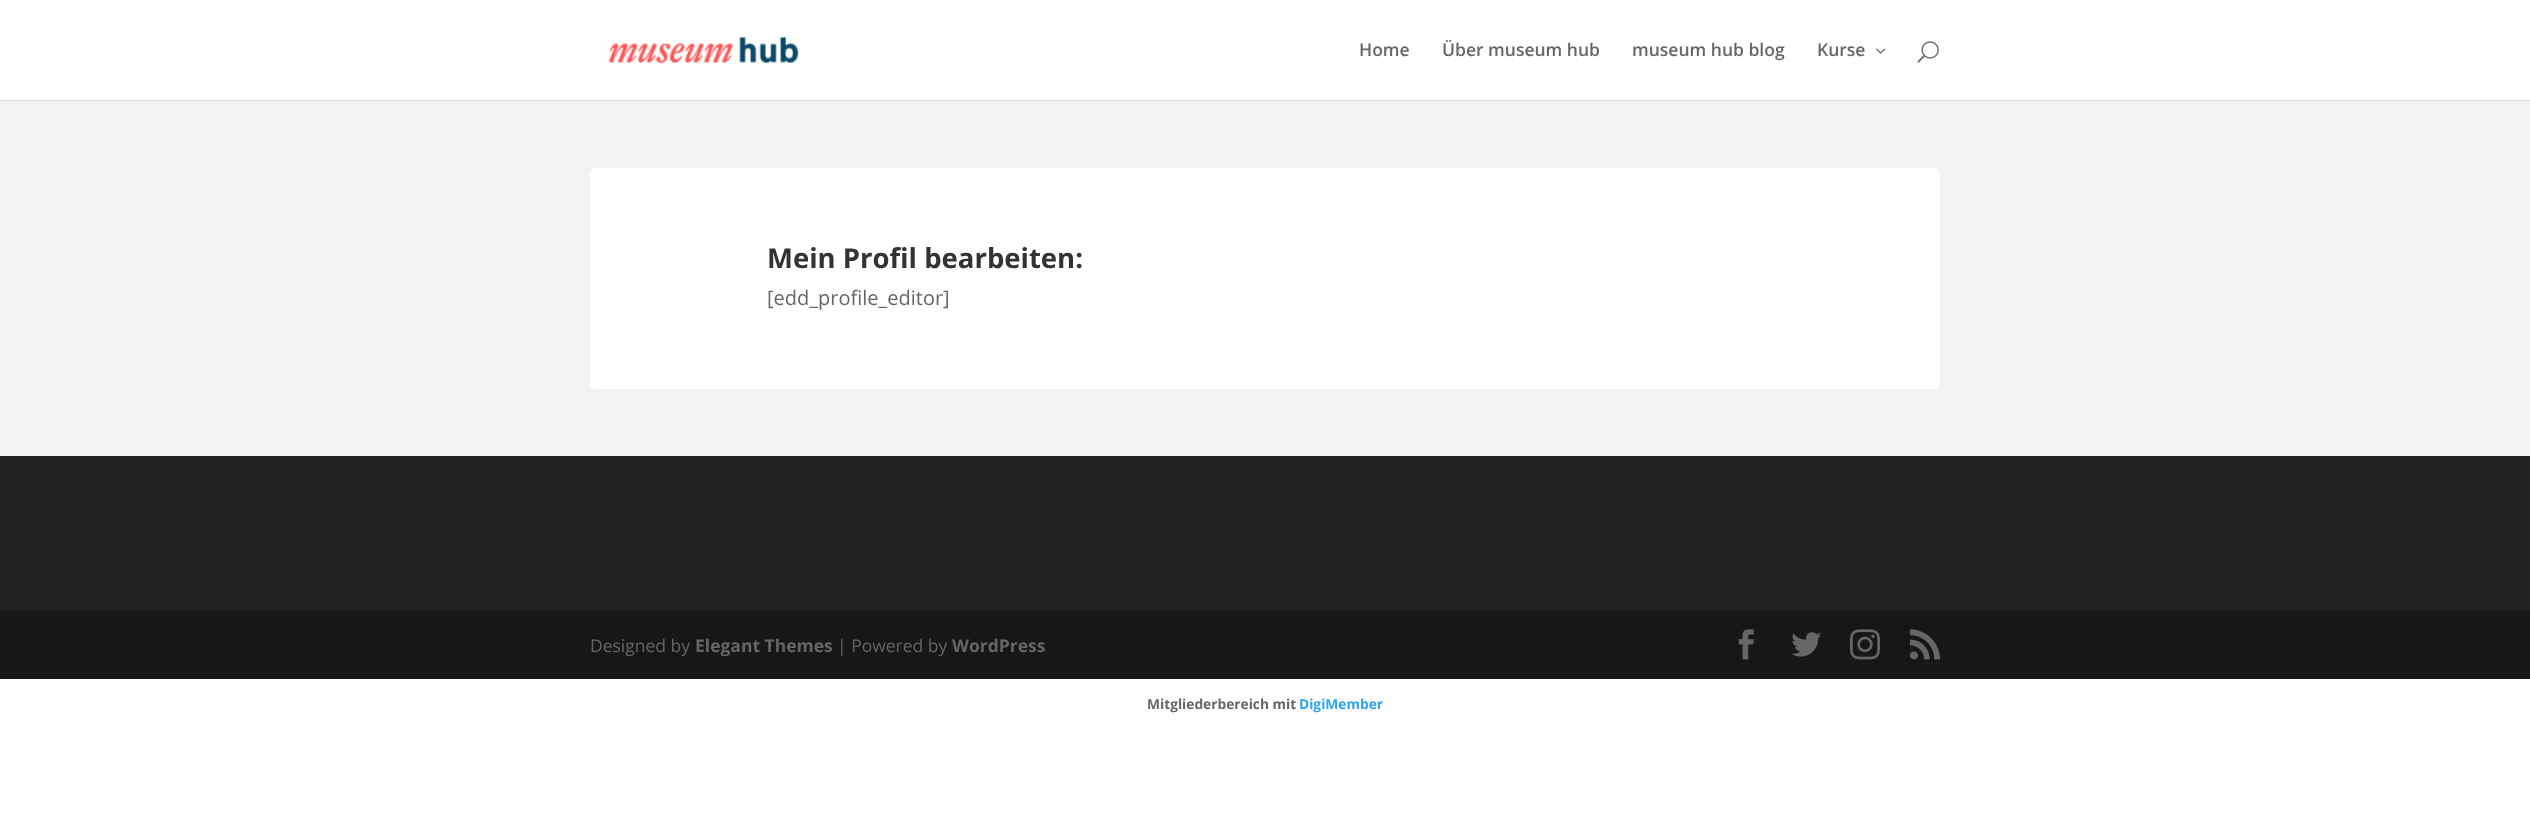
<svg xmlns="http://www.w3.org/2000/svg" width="2530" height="822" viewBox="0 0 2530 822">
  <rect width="100%" height="100%" fill="rgb(255,255,255)"/>
  <rect x="0" y="100" width="2530" height="1" fill="rgb(218,218,218)"/>
  <image x="608" y="36" width="191" height="28" href="pic1.png"/>
  <g font-family="Open Sans" font-size="17.5" font-weight="600" fill="rgb(102,102,102)">
    <text x="1359" y="56">Home</text>
    <text x="1442" y="56">Über museum hub</text>
    <text x="1632" y="56">museum hub blog</text>
    <text x="1817" y="56">Kurse</text>
  </g>
  <image x="1876" y="48" width="10" height="6" href="pic2.png"/>
  <image x="1917" y="41" width="22" height="22" href="pic3.png"/>
  <rect x="0" y="101" width="2530" height="355" fill="rgb(242,242,242)"/>
  <rect x="590" y="168" width="1350" height="221" rx="6" fill="rgb(255,255,255)"/>
  <text x="767" y="268" font-family="Open Sans" font-size="27.5" font-weight="bold" fill="rgb(51,51,51)">Mein Profil bearbeiten:</text>
  <text x="767" y="305" font-family="Open Sans" font-size="20" fill="rgb(102,102,102)">[edd_profile_editor]</text>
  <rect x="0" y="456" width="2530" height="155" fill="rgb(34,34,34)"/>
  <rect x="0" y="611" width="2530" height="68" fill="rgb(23,23,23)"/>
  <text x="590" y="652" font-family="Open Sans" font-size="17.5" fill="rgb(102,102,102)">Designed by</text>
  <text x="695" y="652" font-family="Open Sans" font-size="17.5" font-weight="bold" fill="rgb(102,102,102)">Elegant Themes</text>
  <text x="837" y="652" font-family="Open Sans" font-size="17.5" fill="rgb(102,102,102)">| Powered by</text>
  <text x="952" y="652" font-family="Open Sans" font-size="17.5" font-weight="bold" fill="rgb(102,102,102)">WordPress</text>
  <image x="1738" y="629" width="16" height="31" href="pic4.png"/>
  <image x="1791" y="632" width="30" height="25" href="pic5.png"/>
  <image x="1850" y="629" width="30" height="31" href="pic6.png"/>
  <image x="1910" y="629" width="30" height="31" href="pic7.png"/>
  <text x="1147" y="709" font-family="Open Sans" font-size="13.75" font-weight="bold" fill="rgb(102,102,102)">Mitgliederbereich mit</text>
  <text x="1299" y="709" font-family="Open Sans" font-size="13.75" font-weight="bold" fill="rgb(46,163,242)">DigiMember</text>
</svg>
